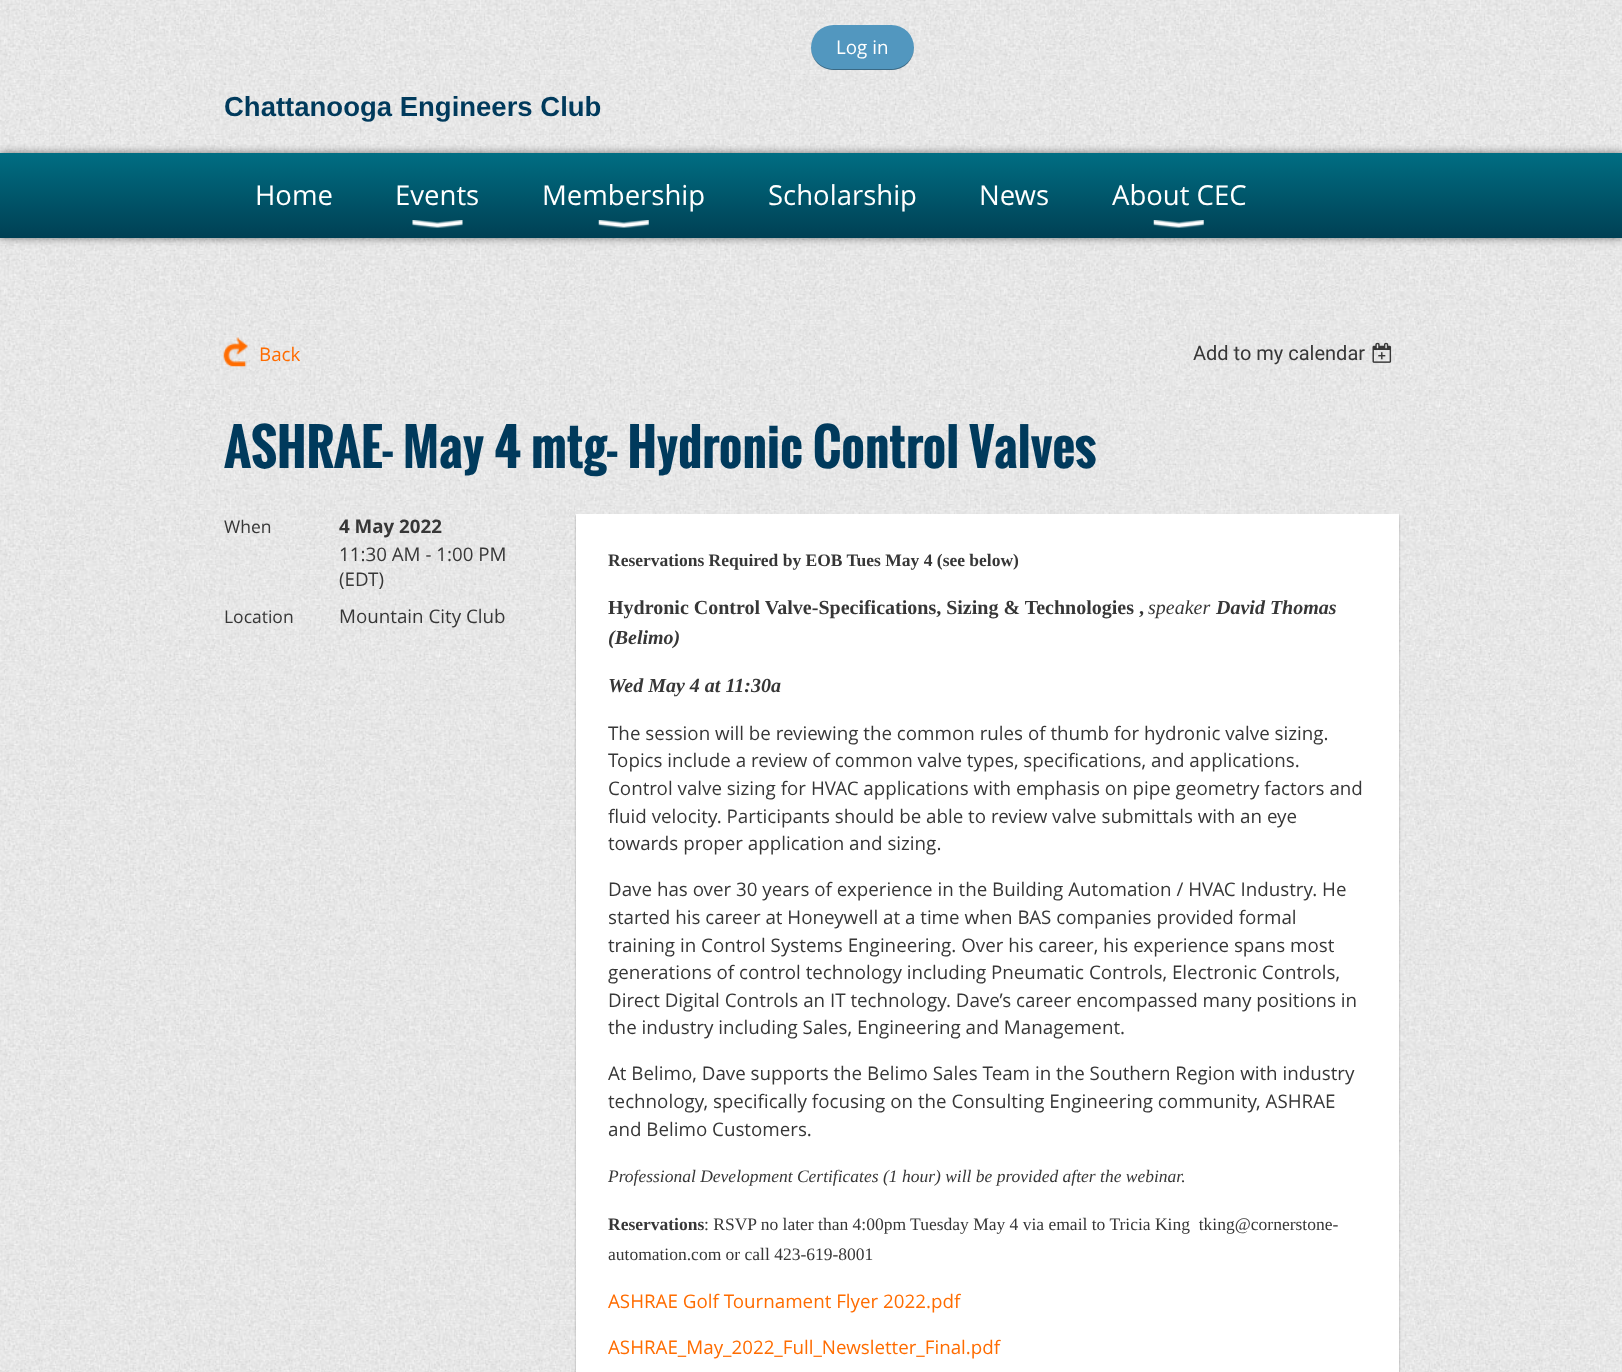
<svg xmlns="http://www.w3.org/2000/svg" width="1622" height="1372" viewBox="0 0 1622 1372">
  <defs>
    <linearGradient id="g1" gradientUnits="userSpaceOnUse" x1="811" y1="152" x2="811" y2="238"><stop offset="0" stop-color="rgb(0,110,131)"/><stop offset="1" stop-color="rgb(0,64,84)"/></linearGradient>
  </defs>
  <rect width="100%" height="100%" fill="rgb(255,255,255)"/>
  <image x="0" y="0" width="1622" height="1372" href="pic1.png"/>
  <rect x="811" y="25" width="103" height="45" rx="22.5" fill="rgb(82,151,191)"/>
  <path d="M811 47V48C811 60 821 70 834 70H892C904 70 914 60 914 48V47C914 59 904 69 891 69H834C821 69 811 59 811 47Z" fill="rgba(0,0,0,0.3)"/>
  <text x="836" y="54" font-family="Open Sans" font-size="18.75" fill="rgb(255,255,255)">Log in</text>
  <text x="224" y="116" font-family="Liberation Sans" font-size="27.5" font-weight="bold" fill="rgb(0,58,92)">Chattanooga Engineers Club</text>
  <rect x="0" y="153" width="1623" height="85" fill="rgba(0,0,0,0.5)" filter="blur(4px)"/>
  <rect x="0" y="153" width="1622" height="85" fill="url(#g1)"/>
  <g font-family="Open Sans" font-size="27.5" fill="rgb(255,255,255)">
    <text x="255" y="205">Home</text>
    <text x="395" y="205">Events</text>
  </g>
  <image x="412" y="220" width="51" height="8" href="pic2.png"/>
  <text x="542" y="205" font-family="Open Sans" font-size="27.5" fill="rgb(255,255,255)">Membership</text>
  <image x="598" y="220" width="51" height="8" href="pic3.png"/>
  <g font-family="Open Sans" font-size="27.5" fill="rgb(255,255,255)">
    <text x="768" y="205">Scholarship</text>
    <text x="979" y="205">News</text>
    <text x="1112" y="205">About CEC</text>
  </g>
  <image x="1153" y="220" width="51" height="8" href="pic4.png"/>
  <image x="223" y="337" width="25" height="30" href="pic5.png"/>
  <text x="259" y="361" font-family="Open Sans" font-size="18.75" fill="rgb(255,108,0)">Back</text>
  <text x="1193" y="360" font-family="Roboto" font-size="20" fill="rgb(55,55,55)">Add to my calendar</text>
  <image x="1372" y="342" width="20" height="21" href="pic6.png"/>
  <text x="224" y="468" font-family="Oswald" font-size="50" font-weight="bold" fill="rgb(0,58,92)">ASHRAE- May 4 mtg- Hydronic Control Valves</text>
  <text x="224" y="533" font-family="Open Sans" font-size="17.5" fill="rgb(55,55,55)">When</text>
  <text x="339" y="533" font-family="Open Sans" font-size="18.75" font-weight="bold" fill="rgb(55,55,55)">4 May 2022</text>
  <g font-family="Open Sans" font-size="18.75" fill="rgb(55,55,55)">
    <text>
      <tspan x="339" y="561">11:30 AM - 1:00 PM</tspan>
      <tspan x="339" y="586">(EDT)</tspan>
    </text>
  </g>
  <text x="224" y="623" font-family="Open Sans" font-size="17.5" fill="rgb(55,55,55)">Location</text>
  <text x="339" y="623" font-family="Open Sans" font-size="18.75" fill="rgb(55,55,55)">Mountain City Club</text>
  <rect x="576" y="516" width="823" height="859" fill="rgba(0,0,0,0.3)" filter="blur(1px)"/>
  <rect x="576" y="514" width="823" height="858" fill="rgb(255,255,255)"/>
  <text x="608" y="566" font-family="Liberation Serif" font-size="17.5" font-weight="bold" fill="rgb(55,55,55)">Reservations Required by EOB Tues May 4 (see below)</text>
  <text x="608" y="614" font-family="Liberation Serif" font-size="20" font-weight="bold" fill="rgb(55,55,55)">Hydronic Control Valve-Specifications, Sizing &amp; Technologies ,</text>
  <text x="1148" y="614" font-family="Liberation Serif" font-size="20" font-style="italic" fill="rgb(55,55,55)">speaker</text>
  <g font-family="Liberation Serif" font-size="20" font-weight="bold" font-style="italic" fill="rgb(55,55,55)">
    <text x="1216" y="614">David Thomas</text>
    <text x="608" y="644">(Belimo)</text>
    <text x="608" y="692">Wed May 4 at 11:30a</text>
  </g>
  <g font-family="Open Sans" font-size="18.75" fill="rgb(55,55,55)">
    <text>
      <tspan x="608" y="740">The session will be reviewing the common rules of thumb for hydronic valve sizing.</tspan>
      <tspan x="608" y="767">Topics include a review of common valve types, specifications, and applications.</tspan>
      <tspan x="608" y="795">Control valve sizing for HVAC applications with emphasis on pipe geometry factors and</tspan>
      <tspan x="608" y="823">fluid velocity. Participants should be able to review valve submittals with an eye</tspan>
      <tspan x="608" y="850">towards proper application and sizing.</tspan>
    </text>
    <text>
      <tspan x="608" y="896">Dave has over 30 years of experience in the Building Automation / HVAC Industry. He</tspan>
      <tspan x="608" y="924">started his career at Honeywell at a time when BAS companies provided formal</tspan>
      <tspan x="608" y="952">training in Control Systems Engineering. Over his career, his experience spans most</tspan>
      <tspan x="608" y="979">generations of control technology including Pneumatic Controls, Electronic Controls,</tspan>
      <tspan x="608" y="1007">Direct Digital Controls an IT technology. Dave’s career encompassed many positions in</tspan>
      <tspan x="608" y="1034">the industry including Sales, Engineering and Management.</tspan>
    </text>
    <text>
      <tspan x="608" y="1080">At Belimo, Dave supports the Belimo Sales Team in the Southern Region with industry</tspan>
      <tspan x="608" y="1108">technology, specifically focusing on the Consulting Engineering community, ASHRAE</tspan>
      <tspan x="608" y="1136">and Belimo Customers.</tspan>
    </text>
  </g>
  <text x="608" y="1182" font-family="Liberation Serif" font-size="17.5" font-style="italic" fill="rgb(55,55,55)">Professional Development Certificates (1 hour) will be provided after the webinar.</text>
  <text x="608" y="1230" font-family="Liberation Serif" font-size="17.5" font-weight="bold" fill="rgb(55,55,55)">Reservations</text>
  <g font-family="Liberation Serif" font-size="17.5" fill="rgb(55,55,55)">
    <text x="704" y="1230" xml:space="preserve">: RSVP no later than 4:00pm Tuesday May 4 via email to Tricia King  tking@cornerstone-</text>
    <text x="608" y="1260">automation.com or call 423-619-8001</text>
  </g>
  <g font-family="Open Sans" font-size="18.75" fill="rgb(255,108,0)">
    <text x="608" y="1308">ASHRAE Golf Tournament Flyer 2022.pdf</text>
    <text x="608" y="1354">ASHRAE_May_2022_Full_Newsletter_Final.pdf</text>
  </g>
</svg>
